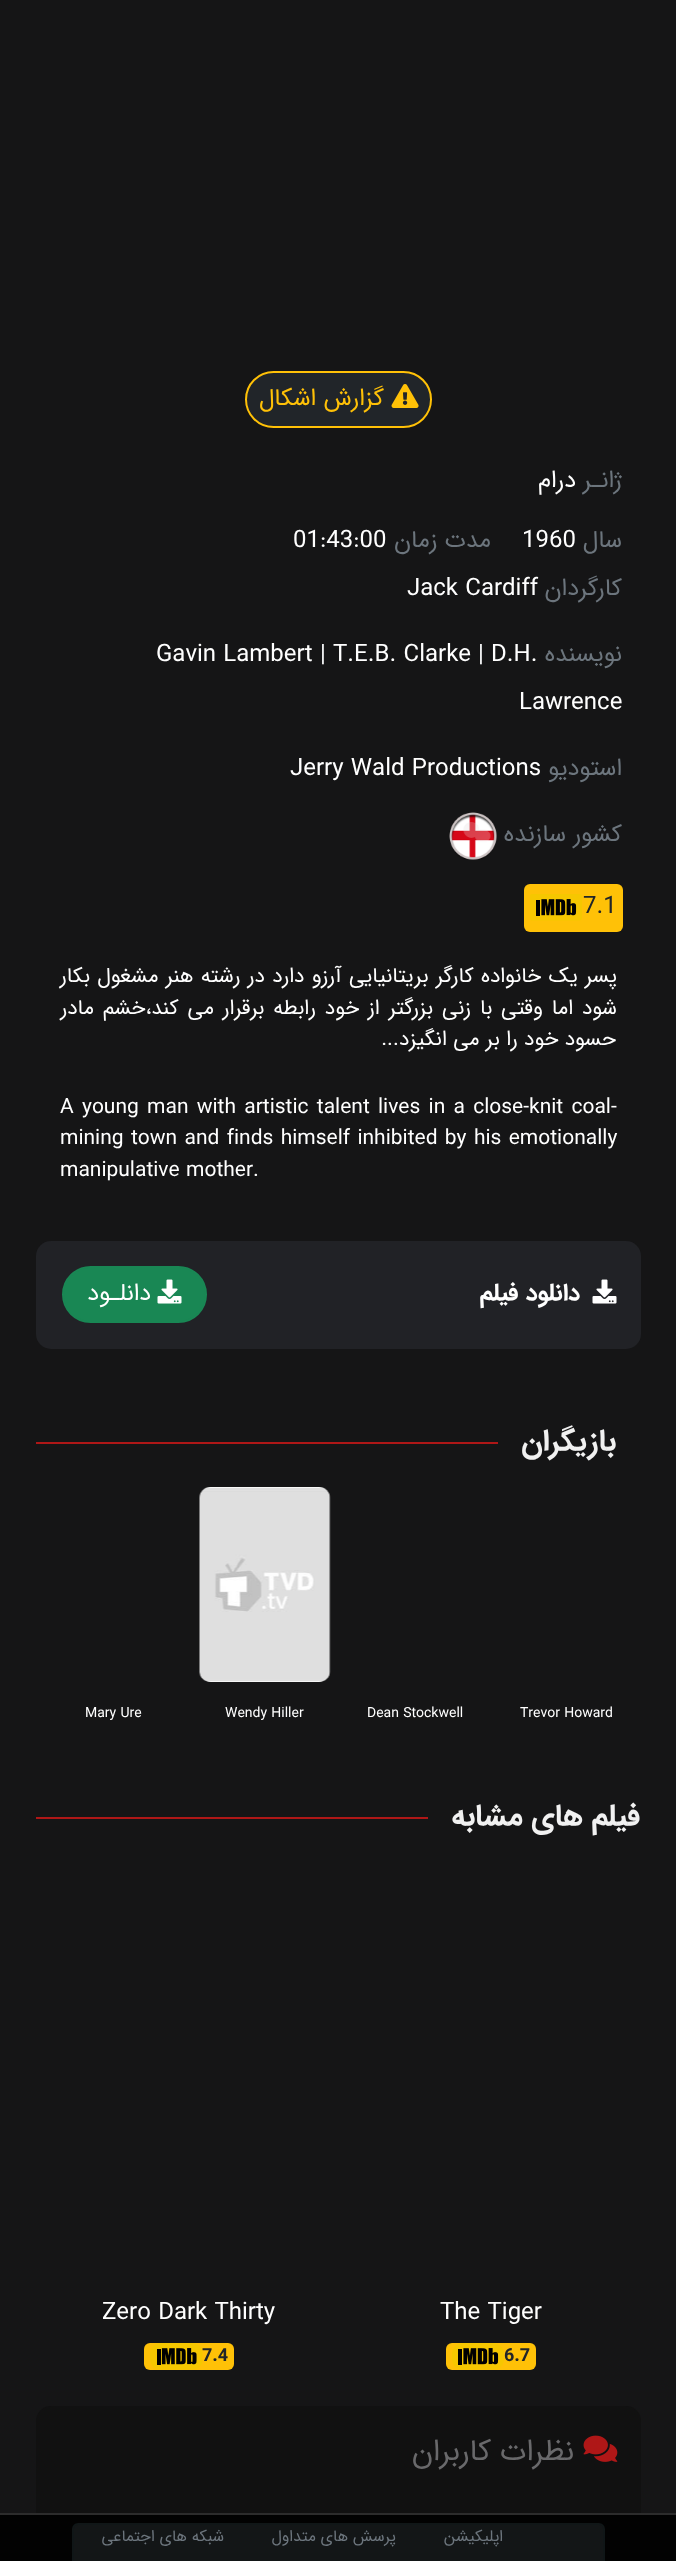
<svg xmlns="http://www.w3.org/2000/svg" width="676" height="2561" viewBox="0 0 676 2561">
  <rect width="100%" height="100%" fill="rgb(21,21,22)"/>
  <rect x="0" y="2515" width="676" height="46" fill="rgb(2,2,2)"/>
  <rect x="246" y="372" width="185" height="55" rx="27.5" fill="rgb(33,37,41)" stroke="rgb(255,193,7)" stroke-width="2"/>
  <image x="391" y="384" width="28" height="24" href="pic1.png"/>
  <text x="384" y="405" font-family="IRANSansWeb" font-size="24" direction="rtl" fill="rgb(255,193,7)">گزارش اشکال</text>
  <text x="622" y="487" font-family="IRANSansWeb" font-size="24" direction="rtl" fill="rgb(108,117,125)">ژانـر</text>
  <text x="576" y="487" font-family="IRANSansWeb" font-size="24" direction="rtl" fill="rgb(255,255,255)">درام</text>
  <text x="622" y="547" font-family="IRANSansWeb" font-size="24" direction="rtl" fill="rgb(108,117,125)">سال</text>
  <text x="522" y="547" font-family="IRANSansWeb" font-size="24" fill="rgb(255,255,255)">1960</text>
  <text x="491" y="547" font-family="IRANSansWeb" font-size="24" direction="rtl" fill="rgb(108,117,125)">مدت زمان</text>
  <text x="293" y="547" font-family="IRANSansWeb" font-size="24" fill="rgb(255,255,255)">01:43:00</text>
  <text x="622" y="595" font-family="IRANSansWeb" font-size="24" direction="rtl" fill="rgb(108,117,125)">کارگردان</text>
  <text x="407" y="595" font-family="IRANSansWeb" font-size="24" fill="rgb(255,255,255)">Jack Cardiff</text>
  <text x="622" y="661" font-family="IRANSansWeb" font-size="24" direction="rtl" fill="rgb(108,117,125)">نویسنده</text>
  <text x="491" y="661" font-family="IRANSansWeb" font-size="24" fill="rgb(255,255,255)">D.H.</text>
  <text x="478" y="661" font-family="IRANSansWeb" font-size="24" fill="rgb(248,249,250)">|</text>
  <text x="333" y="661" font-family="IRANSansWeb" font-size="24" fill="rgb(255,255,255)">T.E.B. Clarke</text>
  <text x="320" y="661" font-family="IRANSansWeb" font-size="24" fill="rgb(248,249,250)">|</text>
  <g font-family="IRANSansWeb" font-size="24" fill="rgb(255,255,255)">
    <text x="156" y="661">Gavin Lambert</text>
    <text x="519" y="709">Lawrence</text>
  </g>
  <text x="622" y="775" font-family="IRANSansWeb" font-size="24" direction="rtl" fill="rgb(108,117,125)">استودیو</text>
  <text x="290" y="775" font-family="IRANSansWeb" font-size="24" fill="rgb(255,255,255)">Jerry Wald Productions</text>
  <text x="622" y="841" font-family="IRANSansWeb" font-size="24" direction="rtl" fill="rgb(108,117,125)">کشور سازنده</text>
  <image x="449" y="812" width="48" height="48" href="pic2.png"/>
  <rect x="524" y="884" width="99" height="48" rx="6" fill="rgb(255,193,7)"/>
  <text x="583" y="913" font-family="IRANSansWeb" font-size="24" fill="rgb(33,37,41)">7.1</text>
  <image x="530" y="894" width="52" height="27" href="pic3.png"/>
  <g font-family="IRANSansWeb" font-size="21" direction="rtl" fill="rgb(255,255,255)">
    <text>
      <tspan x="617" y="982" word-spacing="1">پسر یک خانواده کارگر بریتانیایی آرزو دارد در رشته هنر مشغول بکار</tspan>
      <tspan x="617" y="1014" word-spacing="2.6">شود اما وقتی با زنی بزرگتر از خود رابطه برقرار می کند،خشم مادر</tspan>
    </text>
    <text x="616" y="1045">حسود خود را بر می انگیزد...</text>
  </g>
  <g font-family="IRANSansWeb" font-size="21" fill="rgb(255,255,255)">
    <text>
      <tspan x="60" y="1113" word-spacing="1.9">A young man with artistic talent lives in a close-knit coal-</tspan>
      <tspan x="60" y="1144" word-spacing="1">mining town and finds himself inhibited by his emotionally</tspan>
      <tspan x="60" y="1176">manipulative mother.</tspan>
    </text>
  </g>
  <rect x="36" y="1241" width="605" height="108" rx="15" fill="rgb(33,34,38)"/>
  <image x="592" y="1279" width="25" height="25" href="pic4.png"/>
  <text x="580" y="1300" font-family="IRANSansWeb" font-size="24" font-weight="bold" direction="rtl" fill="rgb(255,255,255)">دانلود فیلم</text>
  <rect x="63" y="1267" width="143" height="55" rx="27.5" fill="rgb(25,135,84)" stroke="rgb(25,135,84)" stroke-width="2"/>
  <image x="157" y="1279" width="25" height="25" href="pic5.png"/>
  <text x="151" y="1300" font-family="IRANSansWeb" font-size="24" direction="rtl" fill="rgb(255,255,255)">دانلـود</text>
  <text x="616" y="1450" font-family="IRANSansWeb" font-size="30" font-weight="bold" direction="rtl" fill="rgb(241,241,241)">بازیگران</text>
  <rect x="36" y="1442" width="462" height="2" fill="rgb(175,23,23)"/>
  <g font-family="IRANSansWeb" font-size="14" fill="rgb(255,255,255)">
    <text x="520" y="1717">Trevor Howard</text>
    <text x="367" y="1717">Dean Stockwell</text>
  </g>
  <image x="199" y="1487" width="132" height="195" href="pic6.png"/>
  <g font-family="IRANSansWeb" font-size="14" fill="rgb(255,255,255)">
    <text x="225" y="1717">Wendy Hiller</text>
    <text x="85" y="1717">Mary Ure</text>
  </g>
  <text x="640" y="1825" font-family="IRANSansWeb" font-size="30" font-weight="bold" direction="rtl" fill="rgb(241,241,241)">فیلم های مشابه</text>
  <rect x="36" y="1817" width="392" height="2" fill="rgb(175,23,23)"/>
  <text x="440" y="2319" font-family="IRANSansWeb" font-size="24" fill="rgb(255,255,255)">The Tiger</text>
  <rect x="446" y="2343" width="90" height="27" rx="6" fill="rgb(255,193,7)"/>
  <text x="504" y="2361" font-family="IRANSansWeb" font-size="18" font-weight="bold" fill="rgb(33,37,41)">6.7</text>
  <image x="452" y="2343" width="52" height="27" href="pic7.png"/>
  <text x="102" y="2319" font-family="IRANSansWeb" font-size="24" fill="rgb(255,255,255)">Zero Dark Thirty</text>
  <rect x="144" y="2343" width="90" height="27" rx="6" fill="rgb(255,193,7)"/>
  <text x="202" y="2361" font-family="IRANSansWeb" font-size="18" font-weight="bold" fill="rgb(33,37,41)">7.4</text>
  <image x="150" y="2343" width="53" height="27" href="pic8.png"/>
  <rect x="36" y="2406" width="605" height="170" rx="15" fill="rgb(17,17,17)"/>
  <rect x="36" y="2515" width="605" height="46" fill="rgb(2,2,2)"/>
  <image x="583" y="2435" width="35" height="27" href="pic9.png"/>
  <text x="574" y="2460" font-family="IRANSansWeb" font-size="30" direction="rtl" fill="rgb(105,105,107)">نظرات کاربران</text>
  <rect x="73" y="2524" width="531" height="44" rx="5" fill="rgb(19,22,23)" stroke="rgb(16,22,23)" stroke-width="2"/>
  <rect x="0" y="2513" width="676" height="2" fill="rgb(44,44,44)"/>
  <g font-family="IRANSansWeb" font-size="16" direction="rtl" fill="rgb(108,117,125)">
    <text x="503" y="2541">اپلیکیشن</text>
    <text x="396" y="2541">پرسش های متداول</text>
    <text x="224" y="2541">شبکه های اجتماعی</text>
  </g>
</svg>
